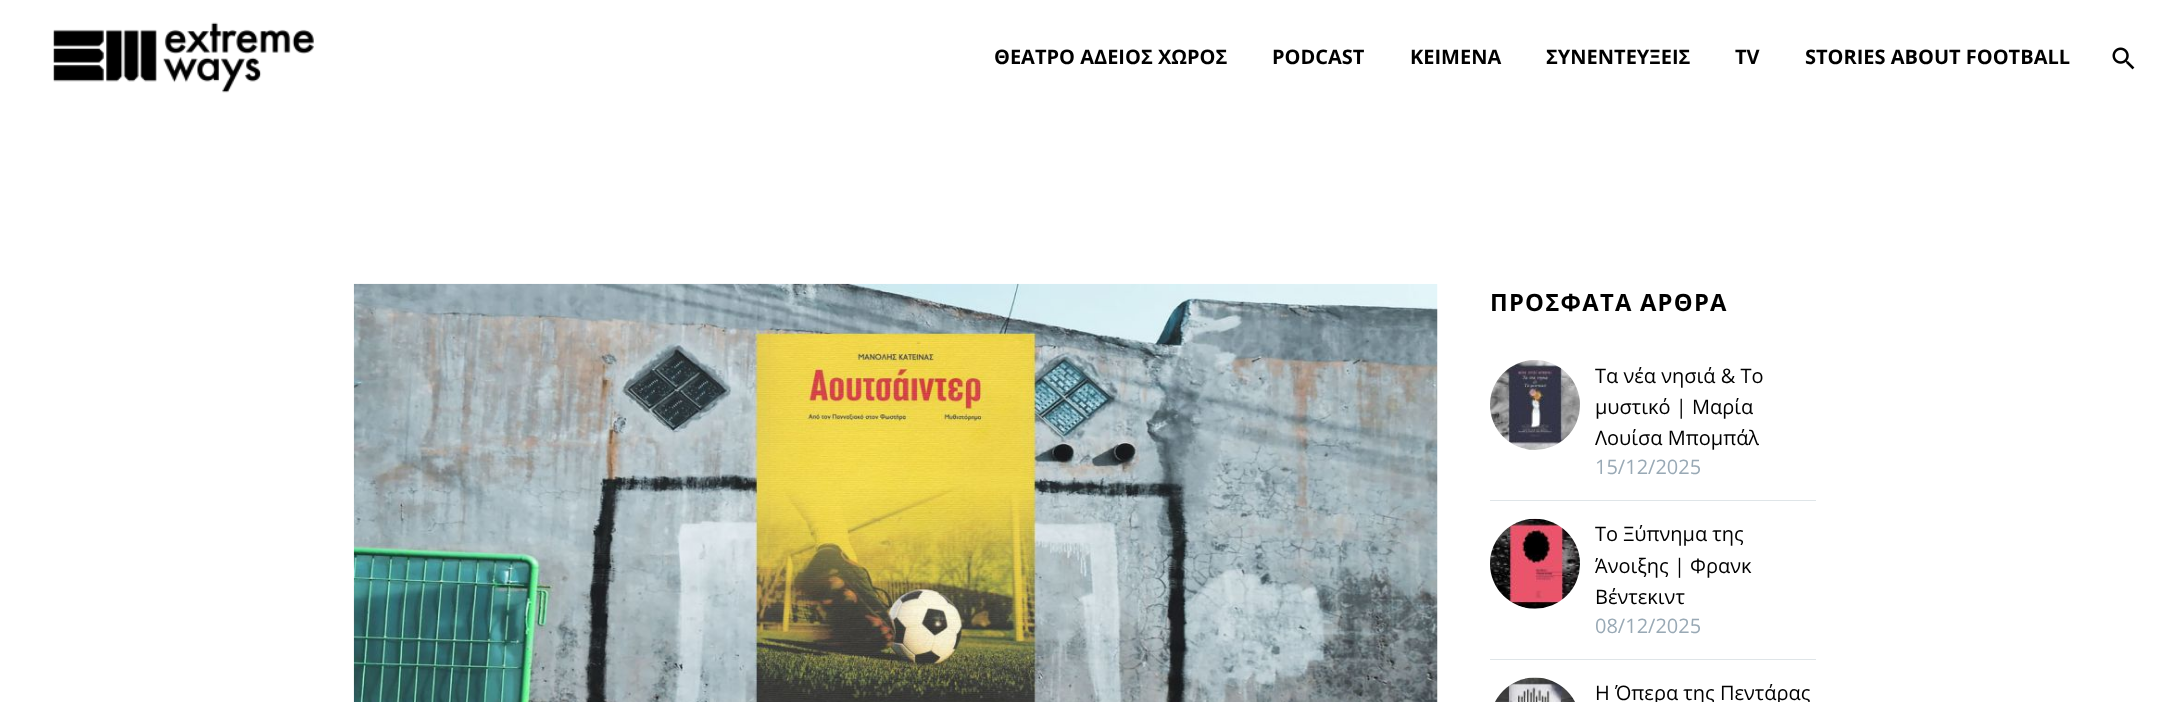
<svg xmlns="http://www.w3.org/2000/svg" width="2169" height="702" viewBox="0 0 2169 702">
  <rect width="100%" height="100%" fill="rgb(255,255,255)"/>
  <image x="53" y="22" width="261" height="71" href="pic1.png"/>
  <g font-family="Open Sans" font-size="20" font-weight="bold" fill="rgb(0,0,0)">
    <text x="994" y="64">ΘΕΑΤΡΟ ΑΔΕΙΟΣ ΧΩΡΟΣ</text>
    <text x="1272" y="64">PODCAST</text>
    <text x="1410" y="64">ΚΕΙΜΕΝΑ</text>
    <text x="1546" y="64">ΣΥΝΕΝΤΕΥΞΕΙΣ</text>
    <text x="1735" y="64">TV</text>
    <text x="1805" y="64">STORIES ABOUT FOOTBALL</text>
  </g>
  <image x="2112" y="47" width="23" height="23" href="pic2.png"/>
  <image x="353" y="283" width="1085" height="419" href="pic3.png"/>
  <text x="1490" y="311" font-family="Open Sans" font-size="23.75" font-weight="bold" letter-spacing="1.25" fill="rgb(0,0,0)">ΠΡΟΣΦΑΤΑ ΑΡΘΡΑ</text>
  <rect x="1490" y="500" width="326" height="1" fill="rgb(223,229,232)"/>
  <image x="1490" y="360" width="90" height="90" href="pic4.png"/>
  <g font-family="Open Sans" font-size="20" fill="rgb(0,0,0)">
    <text>
      <tspan x="1595" y="383">Τα νέα νησιά &amp; Το</tspan>
      <tspan x="1595" y="414">μυστικό | Μαρία</tspan>
      <tspan x="1595" y="445">Λουίσα Μπομπάλ</tspan>
    </text>
  </g>
  <text x="1595" y="474" font-family="Open Sans" font-size="20" fill="rgb(153,169,181)">15/12/2025</text>
  <rect x="1490" y="659" width="326" height="1" fill="rgb(223,229,232)"/>
  <image x="1490" y="518" width="90" height="91" href="pic5.png"/>
  <g font-family="Open Sans" font-size="20" fill="rgb(0,0,0)">
    <text>
      <tspan x="1595" y="541">Το Ξύπνημα της</tspan>
      <tspan x="1595" y="573">Άνοιξης | Φρανκ</tspan>
      <tspan x="1595" y="604">Βέντεκιντ</tspan>
    </text>
  </g>
  <text x="1595" y="633" font-family="Open Sans" font-size="20" fill="rgb(153,169,181)">08/12/2025</text>
  <image x="1495" y="677" width="80" height="25" href="pic6.png"/>
  <text x="1595" y="700" font-family="Open Sans" font-size="20" fill="rgb(0,0,0)">Η Όπερα της Πεντάρας</text>
</svg>
